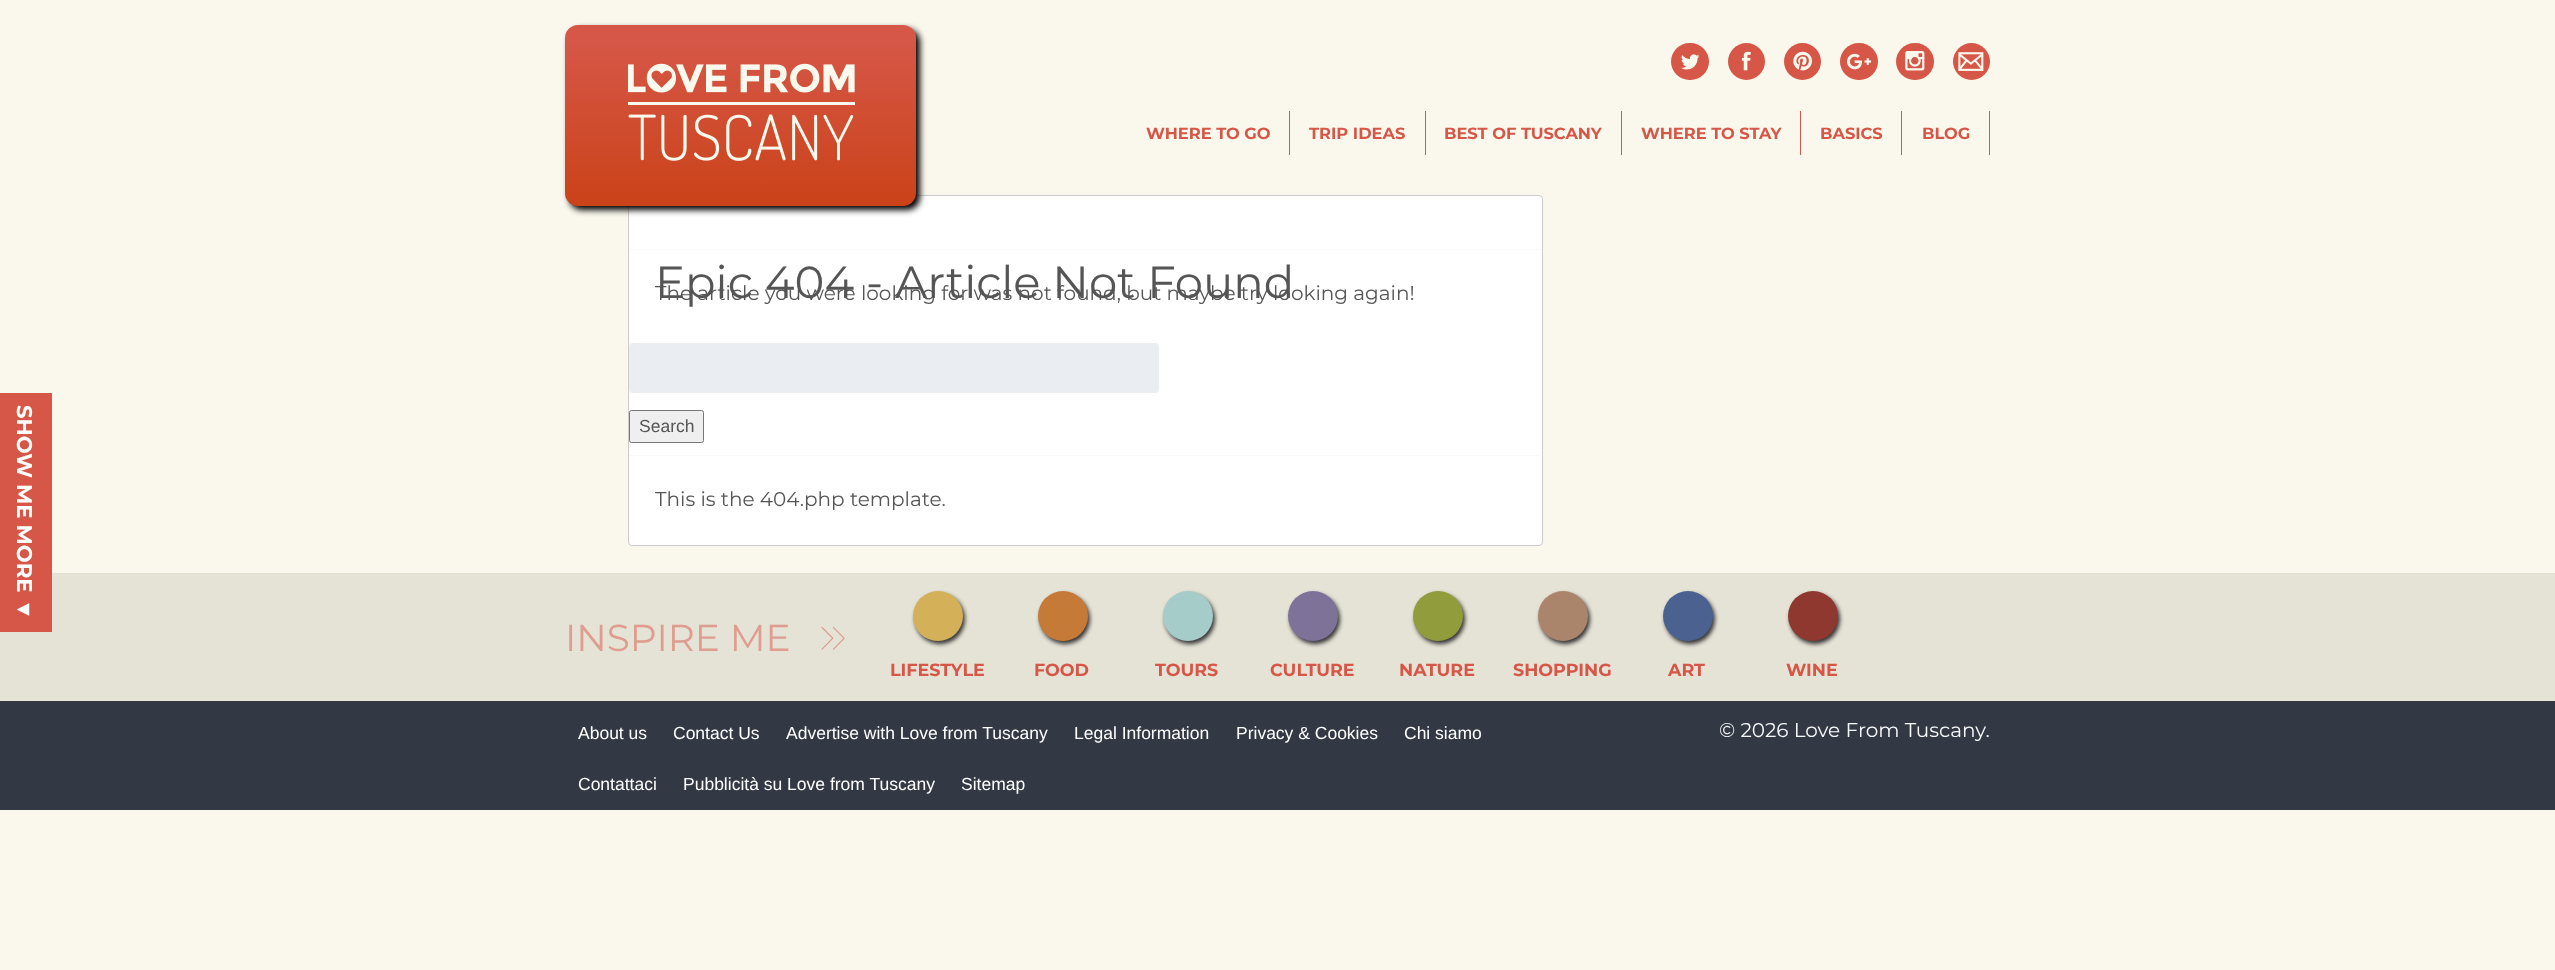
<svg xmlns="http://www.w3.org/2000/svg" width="2555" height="970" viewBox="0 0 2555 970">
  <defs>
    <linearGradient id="g1" gradientUnits="userSpaceOnUse" x1="741" y1="25" x2="741" y2="206"><stop offset="0.09" stop-color="rgb(214,87,71)"/><stop offset="1" stop-color="rgb(202,66,24)"/></linearGradient>
  </defs>
  <rect width="100%" height="100%" fill="rgb(250,248,237)"/>
  <rect x="628.5" y="195.5" width="914" height="350" rx="3.5" fill="rgb(255,255,255)" stroke="rgb(204,204,204)"/>
  <rect x="569" y="29" width="351" height="181" rx="13" fill="rgb(0,0,0)" filter="blur(3px)"/>
  <rect x="565" y="25" width="351" height="181" rx="13" fill="url(#g1)"/>
  <image x="628" y="63" width="227" height="98" href="pic1.png"/>
  <rect x="1671" y="43" width="38" height="37" rx="18.5" fill="rgb(214,87,71)"/>
  <image x="1681" y="54" width="19" height="16" href="pic2.png"/>
  <circle cx="1746.5" cy="61.5" r="18.5" fill="rgb(214,87,71)"/>
  <image x="1741" y="51" width="10" height="20" href="pic3.png"/>
  <circle cx="1802.5" cy="61.5" r="18.5" fill="rgb(214,87,71)"/>
  <image x="1793" y="51" width="19" height="20" href="pic4.png"/>
  <rect x="1840" y="43" width="38" height="37" rx="18.5" fill="rgb(214,87,71)"/>
  <image x="1847" y="53" width="25" height="17" href="pic5.png"/>
  <rect x="1896" y="43" width="38" height="37" rx="18.5" fill="rgb(214,87,71)"/>
  <image x="1905" y="51" width="20" height="20" href="pic6.png"/>
  <circle cx="1971.5" cy="61.5" r="18.5" fill="rgb(214,87,71)"/>
  <image x="1958" y="52" width="26" height="19" href="pic7.png"/>
  <rect x="1289" y="111" width="1" height="44" fill="rgb(214,87,71)"/>
  <text x="1146" y="139" font-family="Montserrat" font-size="16.25" font-weight="bold" fill="rgb(214,87,71)">WHERE TO GO</text>
  <rect x="1425" y="111" width="1" height="44" fill="rgb(214,87,71)"/>
  <text x="1309" y="139" font-family="Montserrat" font-size="16.25" font-weight="bold" fill="rgb(214,87,71)">TRIP IDEAS</text>
  <rect x="1621" y="111" width="1" height="44" fill="rgb(214,87,71)"/>
  <text x="1444" y="139" font-family="Montserrat" font-size="16.25" font-weight="bold" fill="rgb(214,87,71)">BEST OF TUSCANY</text>
  <rect x="1800" y="111" width="1" height="44" fill="rgb(214,87,71)"/>
  <text x="1641" y="139" font-family="Montserrat" font-size="16.25" font-weight="bold" fill="rgb(214,87,71)">WHERE TO STAY</text>
  <rect x="1901" y="111" width="1" height="44" fill="rgb(214,87,71)"/>
  <text x="1820" y="139" font-family="Montserrat" font-size="16.25" font-weight="bold" fill="rgb(214,87,71)">BASICS</text>
  <rect x="1989" y="111" width="1" height="44" fill="rgb(214,87,71)"/>
  <text x="1922" y="139" font-family="Montserrat" font-size="16.25" font-weight="bold" fill="rgb(214,87,71)">BLOG</text>
  <rect x="0" y="573" width="2555" height="128" fill="rgb(229,226,214)"/>
  <rect x="0" y="393" width="52" height="239" fill="rgb(214,87,71)"/>
  <text x="17" y="405" transform="rotate(90 17 405)" font-family="Montserrat" font-size="21.25" font-weight="bold" fill="rgb(255,255,255)">SHOW ME MORE</text>
  <text x="17" y="599" transform="rotate(90 17 599)" font-family="Liberation Sans" font-size="21.25" font-weight="bold" fill="rgb(255,255,255)">▼</text>
  <rect x="629" y="249" width="912" height="1" fill="rgb(248,249,250)"/>
  <text x="655" y="300" font-family="Montserrat" font-size="20" fill="rgb(85,85,85)">The article you were looking for was not found, but maybe try looking again!</text>
  <text x="655" y="298" font-family="Montserrat" font-size="45" fill="rgb(85,85,85)">Epic 404 - Article Not Found</text>
  <rect x="629" y="343" width="530" height="50" rx="4" fill="rgb(234,237,242)"/>
  <rect x="629.5" y="410.5" width="74" height="32" rx="2" fill="rgb(239,239,239)" stroke="rgb(118,118,118)"/>
  <text x="639" y="432" font-family="Liberation Sans" font-size="17.5" fill="rgb(85,85,85)">Search</text>
  <rect x="629" y="455" width="912" height="1" fill="rgb(248,249,250)"/>
  <text x="655" y="506" font-family="Montserrat" font-size="20" fill="rgb(85,85,85)">This is the 404.php template.</text>
  <text x="565" y="651" font-family="Montserrat" font-size="37.5" fill="rgb(222,157,143)">INSPIRE ME</text>
  <image x="821" y="626" width="24" height="24" href="pic8.png"/>
  <rect x="915" y="594" width="50" height="50" rx="25" fill="rgb(51,51,51)" filter="blur(2px)"/>
  <circle cx="938" cy="616" r="25" fill="rgb(212,176,89)"/>
  <text x="890" y="676" font-family="Montserrat" font-size="17.5" font-weight="bold" fill="rgb(214,87,71)">LIFESTYLE</text>
  <rect x="1040" y="594" width="50" height="50" rx="25" fill="rgb(51,51,51)" filter="blur(2px)"/>
  <circle cx="1063" cy="616" r="25" fill="rgb(197,122,55)"/>
  <text x="1034" y="676" font-family="Montserrat" font-size="17.5" font-weight="bold" fill="rgb(214,87,71)">FOOD</text>
  <rect x="1165" y="594" width="50" height="50" rx="25" fill="rgb(51,51,51)" filter="blur(2px)"/>
  <circle cx="1188" cy="616" r="25" fill="rgb(165,204,201)"/>
  <text x="1155" y="676" font-family="Montserrat" font-size="17.5" font-weight="bold" fill="rgb(214,87,71)">TOURS</text>
  <rect x="1290" y="594" width="50" height="50" rx="25" fill="rgb(51,51,51)" filter="blur(2px)"/>
  <circle cx="1313" cy="616" r="25" fill="rgb(127,114,153)"/>
  <text x="1270" y="676" font-family="Montserrat" font-size="17.5" font-weight="bold" fill="rgb(214,87,71)">CULTURE</text>
  <rect x="1415" y="594" width="50" height="50" rx="25" fill="rgb(51,51,51)" filter="blur(2px)"/>
  <circle cx="1438" cy="616" r="25" fill="rgb(145,156,60)"/>
  <text x="1399" y="676" font-family="Montserrat" font-size="17.5" font-weight="bold" fill="rgb(214,87,71)">NATURE</text>
  <rect x="1540" y="594" width="50" height="50" rx="25" fill="rgb(51,51,51)" filter="blur(2px)"/>
  <circle cx="1563" cy="616" r="25" fill="rgb(170,133,108)"/>
  <text x="1513" y="676" font-family="Montserrat" font-size="17.5" font-weight="bold" fill="rgb(214,87,71)">SHOPPING</text>
  <rect x="1665" y="594" width="50" height="50" rx="25" fill="rgb(51,51,51)" filter="blur(2px)"/>
  <circle cx="1688" cy="616" r="25" fill="rgb(75,98,145)"/>
  <text x="1668" y="676" font-family="Montserrat" font-size="17.5" font-weight="bold" fill="rgb(214,87,71)">ART</text>
  <rect x="1790" y="594" width="50" height="50" rx="25" fill="rgb(51,51,51)" filter="blur(2px)"/>
  <circle cx="1813" cy="616" r="25" fill="rgb(142,56,47)"/>
  <text x="1786" y="676" font-family="Montserrat" font-size="17.5" font-weight="bold" fill="rgb(214,87,71)">WINE</text>
  <rect x="0" y="701" width="2555" height="109" fill="rgb(50,57,68)"/>
  <g font-family="Liberation Sans" font-size="17.5" fill="rgb(255,255,255)">
    <text x="578" y="739">About us</text>
    <text x="673" y="739">Contact Us</text>
    <text x="786" y="739">Advertise with Love from Tuscany</text>
    <text x="1074" y="739">Legal Information</text>
    <text x="1236" y="739">Privacy &amp; Cookies</text>
    <text x="1404" y="739">Chi siamo</text>
    <text x="578" y="790">Contattaci</text>
    <text x="683" y="790">Pubblicità su Love from Tuscany</text>
    <text x="961" y="790">Sitemap</text>
  </g>
  <text x="1719" y="737" font-family="Montserrat" font-size="20" fill="rgb(248,249,250)">© 2026 Love From Tuscany.</text>
</svg>
